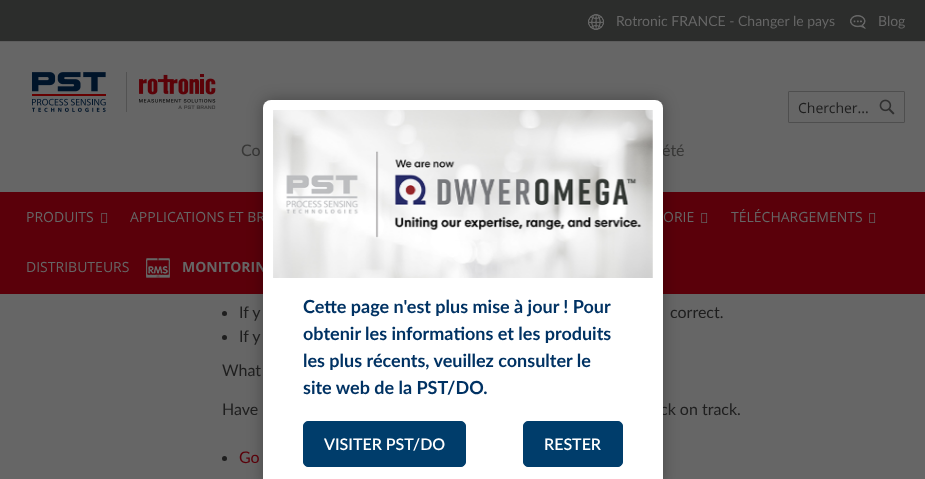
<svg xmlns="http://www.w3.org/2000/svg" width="925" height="479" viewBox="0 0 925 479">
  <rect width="100%" height="100%" fill="rgb(102,102,102)"/>
  <rect x="0" y="0" width="925" height="41" fill="rgb(44,45,44)"/>
  <rect x="0" y="41" width="925" height="1" fill="rgb(93,93,93)"/>
  <image x="588" y="14" width="16" height="16" href="pic1.png"/>
  <text x="616" y="26" font-family="Lato" font-size="14" fill="rgb(102,102,102)">Rotronic FRANCE - Changer le pays</text>
  <image x="850" y="15" width="16" height="14" href="pic2.png"/>
  <text x="878" y="26" font-family="Lato" font-size="14" fill="rgb(102,102,102)">Blog</text>
  <rect x="126" y="72" width="1" height="40" fill="rgb(82,82,82)"/>
  <image x="32" y="72" width="74" height="40" href="pic3.png"/>
  <image x="139" y="74" width="77" height="35" href="pic4.png"/>
  <rect x="788.5" y="91.5" width="116" height="31" rx="0.5" fill="none" stroke="rgb(78,78,78)"/>
  <text x="798" y="113" font-family="Open Sans" font-size="14" fill="rgb(30,30,30)">Chercher...</text>
  <image x="879" y="99" width="16" height="16" href="pic5.png"/>
  <g font-family="Lato" font-size="16" fill="rgb(56,56,55)">
    <text x="241" y="156">Co</text>
    <text x="662" y="156">été</text>
  </g>
  <rect x="0" y="192" width="925" height="102" fill="rgb(90,0,10)"/>
  <text x="26" y="222" font-family="Open Sans" font-size="14" fill="rgb(102,102,102)">PRODUITS</text>
  <image x="101" y="213" width="7" height="10" href="pic6.png"/>
  <g font-family="Open Sans" font-size="14" fill="rgb(102,102,102)">
    <text x="130" y="222">APPLICATIONS ET BR</text>
    <text x="663" y="222">ORIE</text>
  </g>
  <image x="701" y="213" width="7" height="10" href="pic6.png"/>
  <text x="731" y="222" font-family="Open Sans" font-size="14" fill="rgb(102,102,102)">TÉLÉCHARGEMENTS</text>
  <image x="869" y="213" width="7" height="10" href="pic6.png"/>
  <text x="26" y="272" font-family="Open Sans" font-size="14" fill="rgb(102,102,102)">DISTRIBUTEURS</text>
  <image x="146" y="258" width="24" height="20" href="pic7.png"/>
  <text x="182" y="272" font-family="Open Sans" font-size="14" font-weight="bold" fill="rgb(102,102,102)">MONITORIN</text>
  <rect x="263" y="100" width="400" height="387" rx="8" fill="rgba(0,0,0,0.3)" filter="blur(7.5px)"/>
  <text x="660" y="415" font-family="Lato" font-size="16" fill="rgb(30,30,30)">ck on track.</text>
  <rect x="263" y="100" width="400" height="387" rx="8" fill="rgb(255,255,255)"/>
  <image x="273" y="110" width="380" height="168" href="pic8.png"/>
  <g font-family="Lato" font-size="18" font-weight="bold" fill="rgb(0,50,99)">
    <text>
      <tspan x="303" y="313">Cette page n'est plus mise à jour ! Pour</tspan>
      <tspan x="303" y="340">obtenir les informations et les produits</tspan>
      <tspan x="303" y="367">les plus récents, veuillez consulter le</tspan>
      <tspan x="303" y="394">site web de la PST/DO.</tspan>
    </text>
  </g>
  <rect x="303.5" y="421.5" width="162" height="45" rx="4.5" fill="rgb(0,61,107)" stroke="rgb(0,61,107)"/>
  <text x="324" y="450" font-family="Lato" font-size="16" font-weight="600" fill="rgb(255,255,255)">VISITER PST/DO</text>
  <rect x="523.5" y="421.5" width="99" height="45" rx="4.5" fill="rgb(0,61,107)" stroke="rgb(0,61,107)"/>
  <text x="544" y="450" font-family="Lato" font-size="16" font-weight="600" fill="rgb(255,255,255)">RESTER</text>
  <circle cx="224.5" cy="313.5" r="2.5" fill="rgb(30,30,30)"/>
  <g font-family="Lato" font-size="16" fill="rgb(30,30,30)">
    <text x="239" y="318">If y</text>
    <text x="670" y="318">correct.</text>
  </g>
  <circle cx="224.5" cy="337.5" r="2.5" fill="rgb(30,30,30)"/>
  <g font-family="Lato" font-size="16" fill="rgb(30,30,30)">
    <text x="239" y="342">If y</text>
    <text x="222" y="376">What</text>
    <text x="222" y="415">Have</text>
  </g>
  <circle cx="224.5" cy="458.5" r="2.5" fill="rgb(30,30,30)"/>
  <text x="239" y="463" font-family="Lato" font-size="16" fill="rgb(90,0,10)">Go</text>
</svg>
